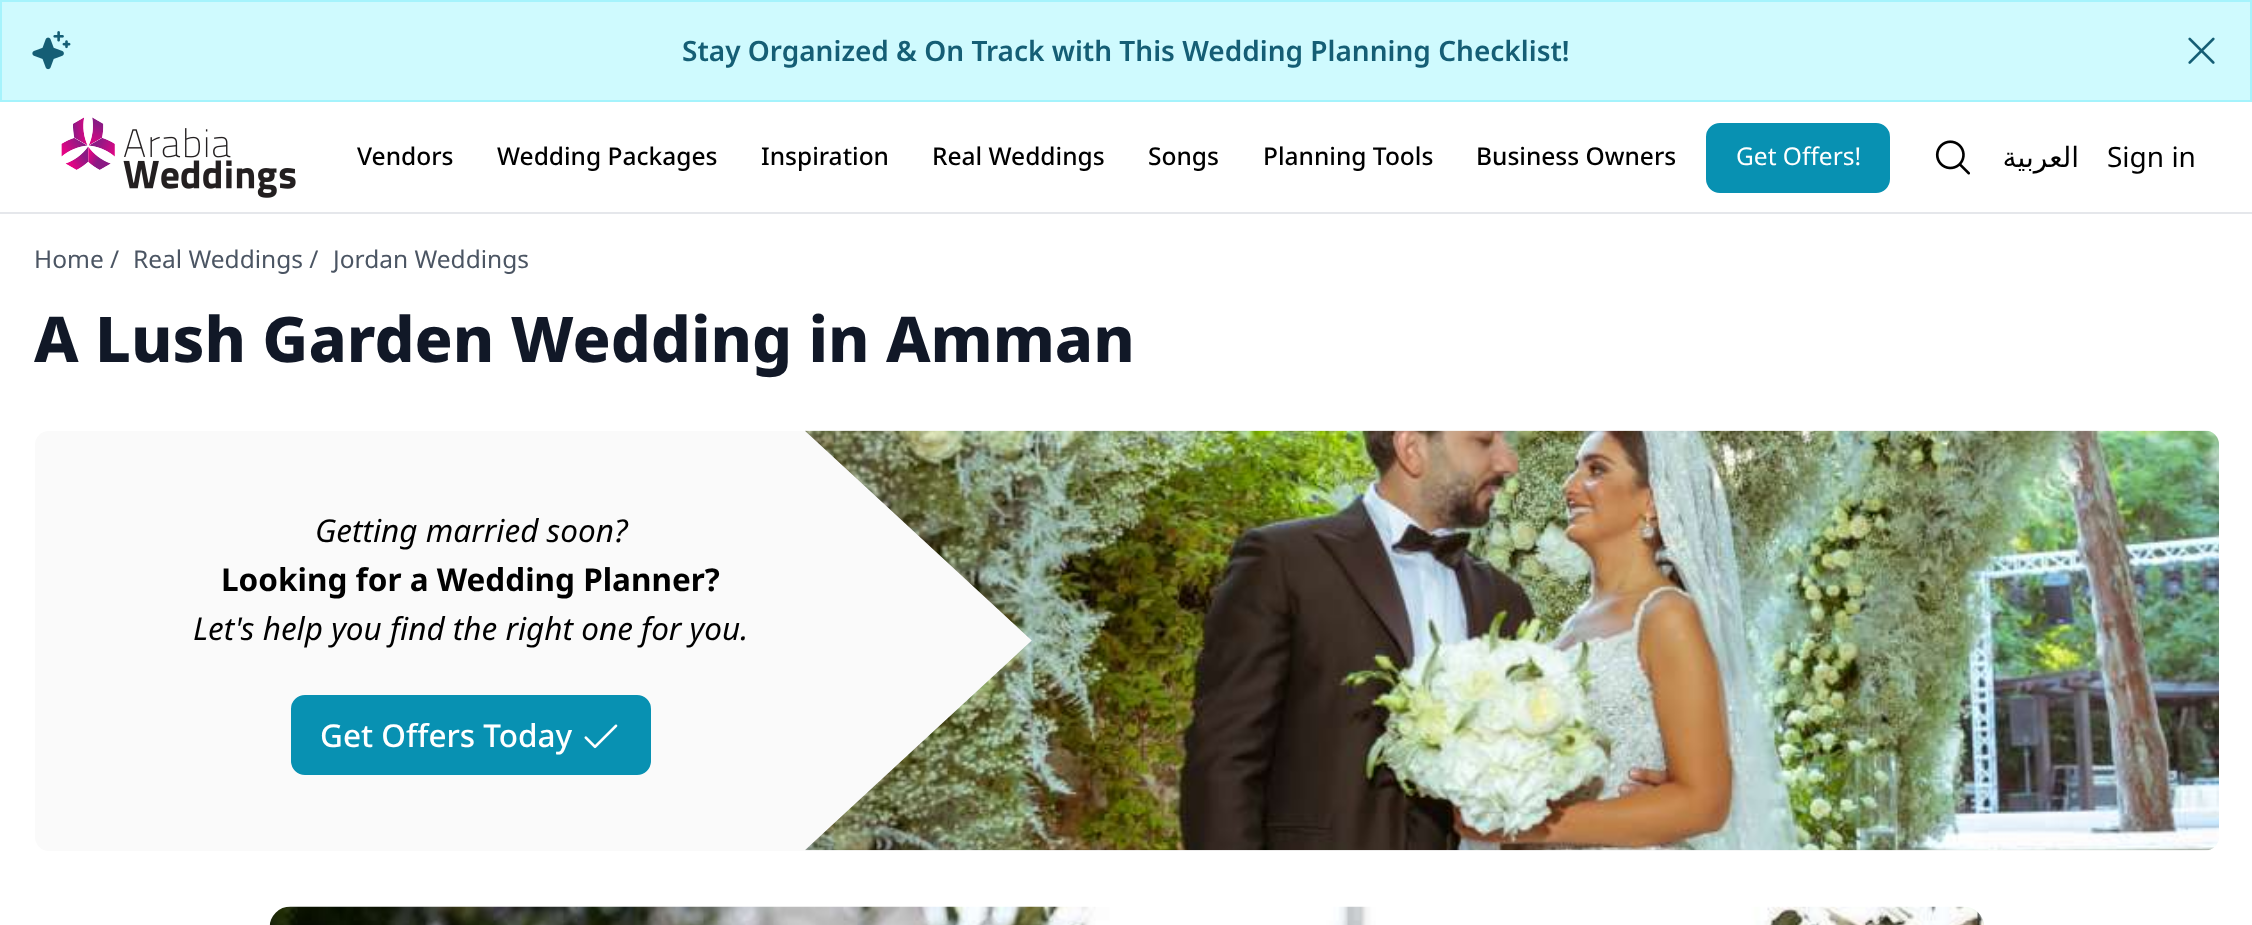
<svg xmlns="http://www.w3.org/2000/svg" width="2252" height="925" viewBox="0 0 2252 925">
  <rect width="100%" height="100%" fill="rgb(255,255,255)"/>
  <rect x="1" y="1" width="2250" height="100" fill="rgb(207,250,254)" stroke="rgb(165,243,252)" stroke-width="2"/>
  <image x="32" y="31" width="39" height="39" href="pic1.png"/>
  <text x="682" y="61" font-family="Noto Sans" font-size="28" font-weight="600" fill="rgb(21,94,117)">Stay Organized &amp; On Track with This Wedding Planning Checklist!</text>
  <image x="2188" y="37" width="27" height="27" href="pic2.png"/>
  <rect x="0" y="212" width="2252" height="2" fill="rgb(229,231,235)"/>
  <image x="61" y="117" width="235" height="81" href="pic3.png"/>
  <g font-family="Noto Sans" font-size="24.5" font-weight="500" fill="rgb(0,0,0)">
    <text x="357" y="165">Vendors</text>
    <text x="497" y="165">Wedding Packages</text>
    <text x="761" y="165">Inspiration</text>
    <text x="932" y="165">Real Weddings</text>
    <text x="1148" y="165">Songs</text>
    <text x="1263" y="165">Planning Tools</text>
    <text x="1476" y="165">Business Owners</text>
  </g>
  <rect x="1707" y="124" width="182" height="68" rx="13" fill="rgb(8,145,178)" stroke="rgb(8,145,178)" stroke-width="2"/>
  <text x="1736" y="165" font-family="Noto Sans" font-size="24.5" fill="rgb(255,255,255)">Get Offers!</text>
  <image x="1935" y="140" width="35" height="35" href="pic4.png"/>
  <text x="2079" y="167" font-family="DejaVu Sans" font-size="28" direction="rtl" fill="rgb(0,0,0)">العربية</text>
  <text x="2107" y="167" font-family="Noto Sans" font-size="28" fill="rgb(0,0,0)">Sign in</text>
  <g font-family="Noto Sans" font-size="24.5" fill="rgb(75,85,99)">
    <text x="34" y="268">Home /</text>
    <text x="133" y="268">Real Weddings /</text>
    <text x="333" y="268">Jordan Weddings</text>
  </g>
  <text x="34" y="362" font-family="Noto Sans" font-size="63" font-weight="800" fill="rgb(17,24,39)">A Lush Garden Wedding in Amman</text>
  <rect x="35" y="431" width="2184" height="420" rx="14" fill="rgb(250,250,250)"/>
  <text x="315" y="542" font-family="Noto Sans" font-size="31.5" font-style="italic" fill="rgb(0,0,0)">Getting married soon?</text>
  <text x="221" y="591" font-family="Noto Sans" font-size="31.5" font-weight="bold" fill="rgb(0,0,0)">Looking for a Wedding Planner?</text>
  <text x="193" y="640" font-family="Noto Sans" font-size="31.5" font-style="italic" fill="rgb(0,0,0)">Let's help you find the right one for you.</text>
  <rect x="292" y="696" width="358" height="78" rx="13" fill="rgb(8,145,178)" stroke="rgb(8,145,178)" stroke-width="2"/>
  <text x="320" y="747" font-family="Noto Sans" font-size="31.5" font-weight="500" fill="rgb(255,255,255)">Get Offers Today</text>
  <image x="584" y="724" width="34" height="25" href="pic5.png"/>
  <image x="805" y="430" width="1414" height="421" href="pic6.png"/>
  <image x="269" y="906" width="1715" height="19" href="pic7.png"/>
</svg>
